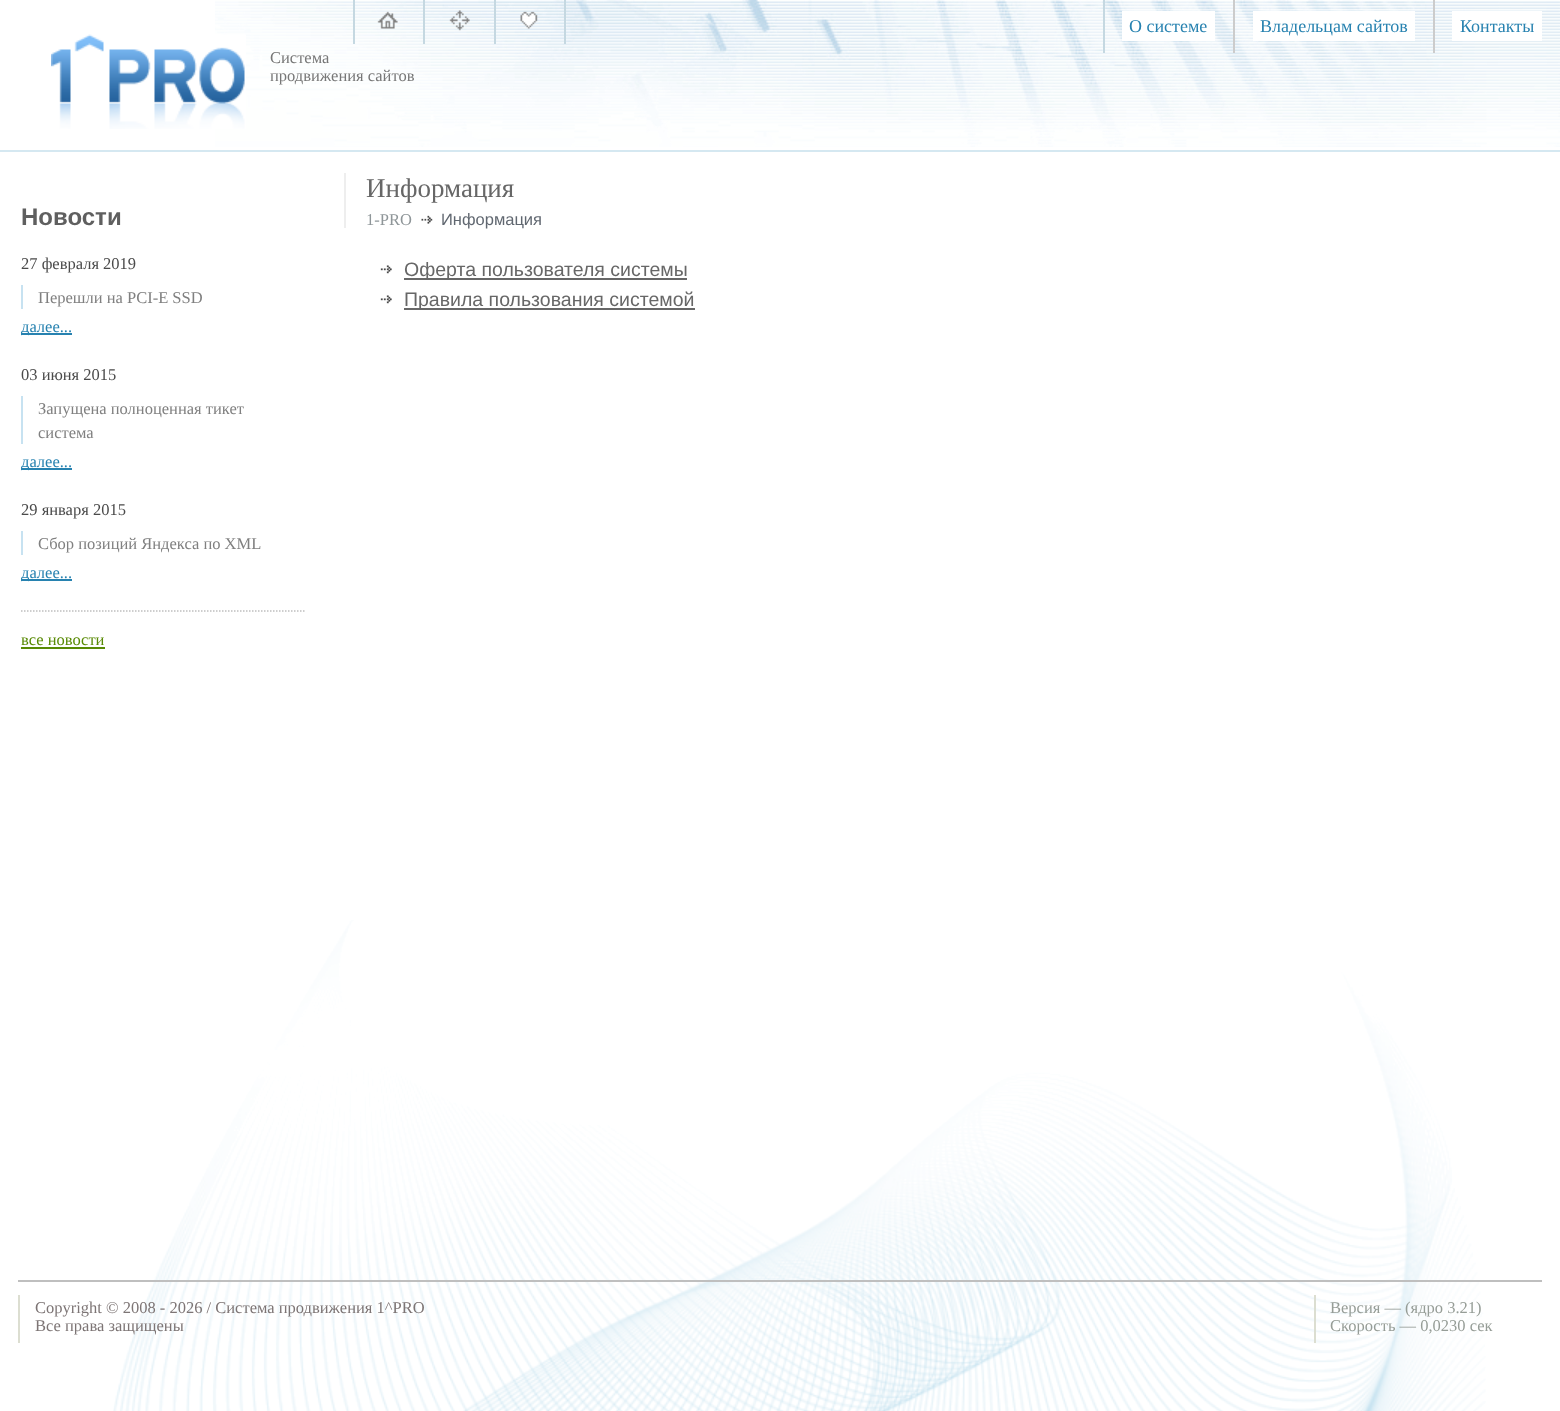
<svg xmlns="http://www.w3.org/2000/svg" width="1560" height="1411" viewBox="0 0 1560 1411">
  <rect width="100%" height="100%" fill="rgb(255,255,255)"/>
  <image x="113" y="920" width="1373" height="491" href="pic1.png"/>
  <image x="215" y="0" width="1345" height="147" href="pic2.png"/>
  <rect x="0" y="150" width="1560" height="2" fill="rgb(213,232,241)"/>
  <rect x="353" y="0" width="2" height="44" fill="rgb(197,216,225)"/>
  <image x="377" y="11" width="21" height="18" href="pic3.png"/>
  <rect x="423" y="0" width="2" height="44" fill="rgb(197,216,225)"/>
  <image x="449" y="10" width="21" height="21" href="pic4.png"/>
  <rect x="564" y="0" width="2" height="44" fill="rgb(197,216,225)"/>
  <rect x="494" y="0" width="2" height="44" fill="rgb(197,216,225)"/>
  <image x="520" y="11" width="18" height="18" href="pic5.png"/>
  <rect x="1103" y="0" width="2" height="53" fill="rgb(197,216,225)"/>
  <rect x="1122" y="11" width="93" height="30" fill="rgb(255,255,255)"/>
  <text x="1129" y="32" font-family="Liberation Serif" font-size="18" fill="rgb(39,130,176)">О системе</text>
  <rect x="1233" y="0" width="2" height="53" fill="rgb(204,204,204)"/>
  <rect x="1253" y="11" width="162" height="30" fill="rgb(255,255,255)"/>
  <text x="1260" y="32" font-family="Liberation Serif" font-size="18" fill="rgb(39,130,176)">Владельцам сайтов</text>
  <rect x="1433" y="0" width="2" height="53" fill="rgb(204,204,204)"/>
  <rect x="1452" y="11" width="90" height="30" fill="rgb(255,255,255)"/>
  <text x="1460" y="32" font-family="Liberation Serif" font-size="18" fill="rgb(39,130,176)">Контакты</text>
  <image x="51" y="34" width="195" height="95" href="pic6.png"/>
  <g font-family="Liberation Serif" font-size="16.5" fill="rgb(119,119,119)">
    <text>
      <tspan x="270" y="63">Система</tspan>
      <tspan x="270" y="81">продвижения сайтов</tspan>
    </text>
  </g>
  <text x="21" y="225" font-family="Liberation Sans" font-size="24" font-weight="bold" fill="rgb(95,95,95)">Новости</text>
  <text x="21" y="269" font-family="Liberation Serif" font-size="16.5" fill="rgb(74,74,74)">27 февраля 2019</text>
  <rect x="21" y="285" width="2" height="24" fill="rgb(199,226,241)"/>
  <text x="38" y="303" font-family="Liberation Serif" font-size="16.5" fill="rgb(128,128,128)">Перешли на PCI-E SSD</text>
  <rect x="21" y="333" width="51" height="2" fill="rgb(39,130,176)"/>
  <text x="21" y="332" font-family="Liberation Serif" font-size="16.5" fill="rgb(39,130,176)">далее...</text>
  <text x="21" y="380" font-family="Liberation Serif" font-size="16.5" fill="rgb(74,74,74)">03 июня 2015</text>
  <rect x="21" y="396" width="2" height="48" fill="rgb(199,226,241)"/>
  <g font-family="Liberation Serif" font-size="16.5" fill="rgb(128,128,128)">
    <text>
      <tspan x="38" y="414">Запущена полноценная тикет</tspan>
      <tspan x="38" y="438">система</tspan>
    </text>
  </g>
  <rect x="21" y="468" width="51" height="2" fill="rgb(39,130,176)"/>
  <text x="21" y="467" font-family="Liberation Serif" font-size="16.5" fill="rgb(39,130,176)">далее...</text>
  <text x="21" y="515" font-family="Liberation Serif" font-size="16.5" fill="rgb(74,74,74)">29 января 2015</text>
  <rect x="21" y="531" width="2" height="24" fill="rgb(199,226,241)"/>
  <text x="38" y="549" font-family="Liberation Serif" font-size="16.5" fill="rgb(128,128,128)">Сбор позиций Яндекса по XML</text>
  <rect x="21" y="579" width="51" height="2" fill="rgb(39,130,176)"/>
  <text x="21" y="578" font-family="Liberation Serif" font-size="16.5" fill="rgb(39,130,176)">далее...</text>
  <path d="M21 611H306" fill="none" stroke="rgb(190,190,190)" stroke-width="1.5" stroke-dasharray="1.5 1.5"/>
  <text x="21" y="645" font-family="Liberation Serif" font-size="16.5" fill="rgb(88,138,4)">все новости</text>
  <rect x="21" y="647" width="84" height="2" fill="rgb(88,138,4)"/>
  <rect x="344" y="173" width="2" height="55" fill="rgb(238,238,238)"/>
  <text x="366" y="197" font-family="Liberation Serif" font-size="27" fill="rgb(103,103,103)">Информация</text>
  <text x="366" y="225" font-family="Liberation Serif" font-size="16.5" fill="rgb(143,150,153)">1-PRO</text>
  <image x="421" y="215" width="12" height="9" href="pic7.png"/>
  <text x="441" y="225" font-family="Liberation Sans" font-size="16.5" fill="rgb(96,103,112)">Информация</text>
  <image x="380" y="265" width="12" height="9" href="pic8.png"/>
  <rect x="404" y="278" width="283" height="2" fill="rgb(103,103,103)"/>
  <text x="404" y="276" font-family="Liberation Sans" font-size="19.5" fill="rgb(103,103,103)">Оферта пользователя системы</text>
  <image x="380" y="295" width="12" height="9" href="pic8.png"/>
  <rect x="404" y="308" width="291" height="2" fill="rgb(103,103,103)"/>
  <text x="404" y="306" font-family="Liberation Sans" font-size="19.5" fill="rgb(103,103,103)">Правила пользования системой</text>
  <rect x="18" y="1280" width="1524" height="2" fill="rgb(191,191,191)"/>
  <rect x="18" y="1295" width="2" height="48" fill="rgb(220,222,209)"/>
  <g font-family="Liberation Serif" font-size="16.5" fill="rgb(125,117,117)">
    <text>
      <tspan x="35" y="1313">Copyright © 2008 - 2026 / Система продвижения 1^PRO</tspan>
      <tspan x="35" y="1331">Все права защищены</tspan>
    </text>
  </g>
  <rect x="1314" y="1295" width="2" height="48" fill="rgb(220,222,209)"/>
  <g font-family="Liberation Serif" font-size="16.5" fill="rgb(150,157,151)">
    <text>
      <tspan x="1330" y="1313">Версия — (ядро 3.21)</tspan>
      <tspan x="1330" y="1331">Скорость — 0,0230 сек</tspan>
    </text>
  </g>
</svg>
